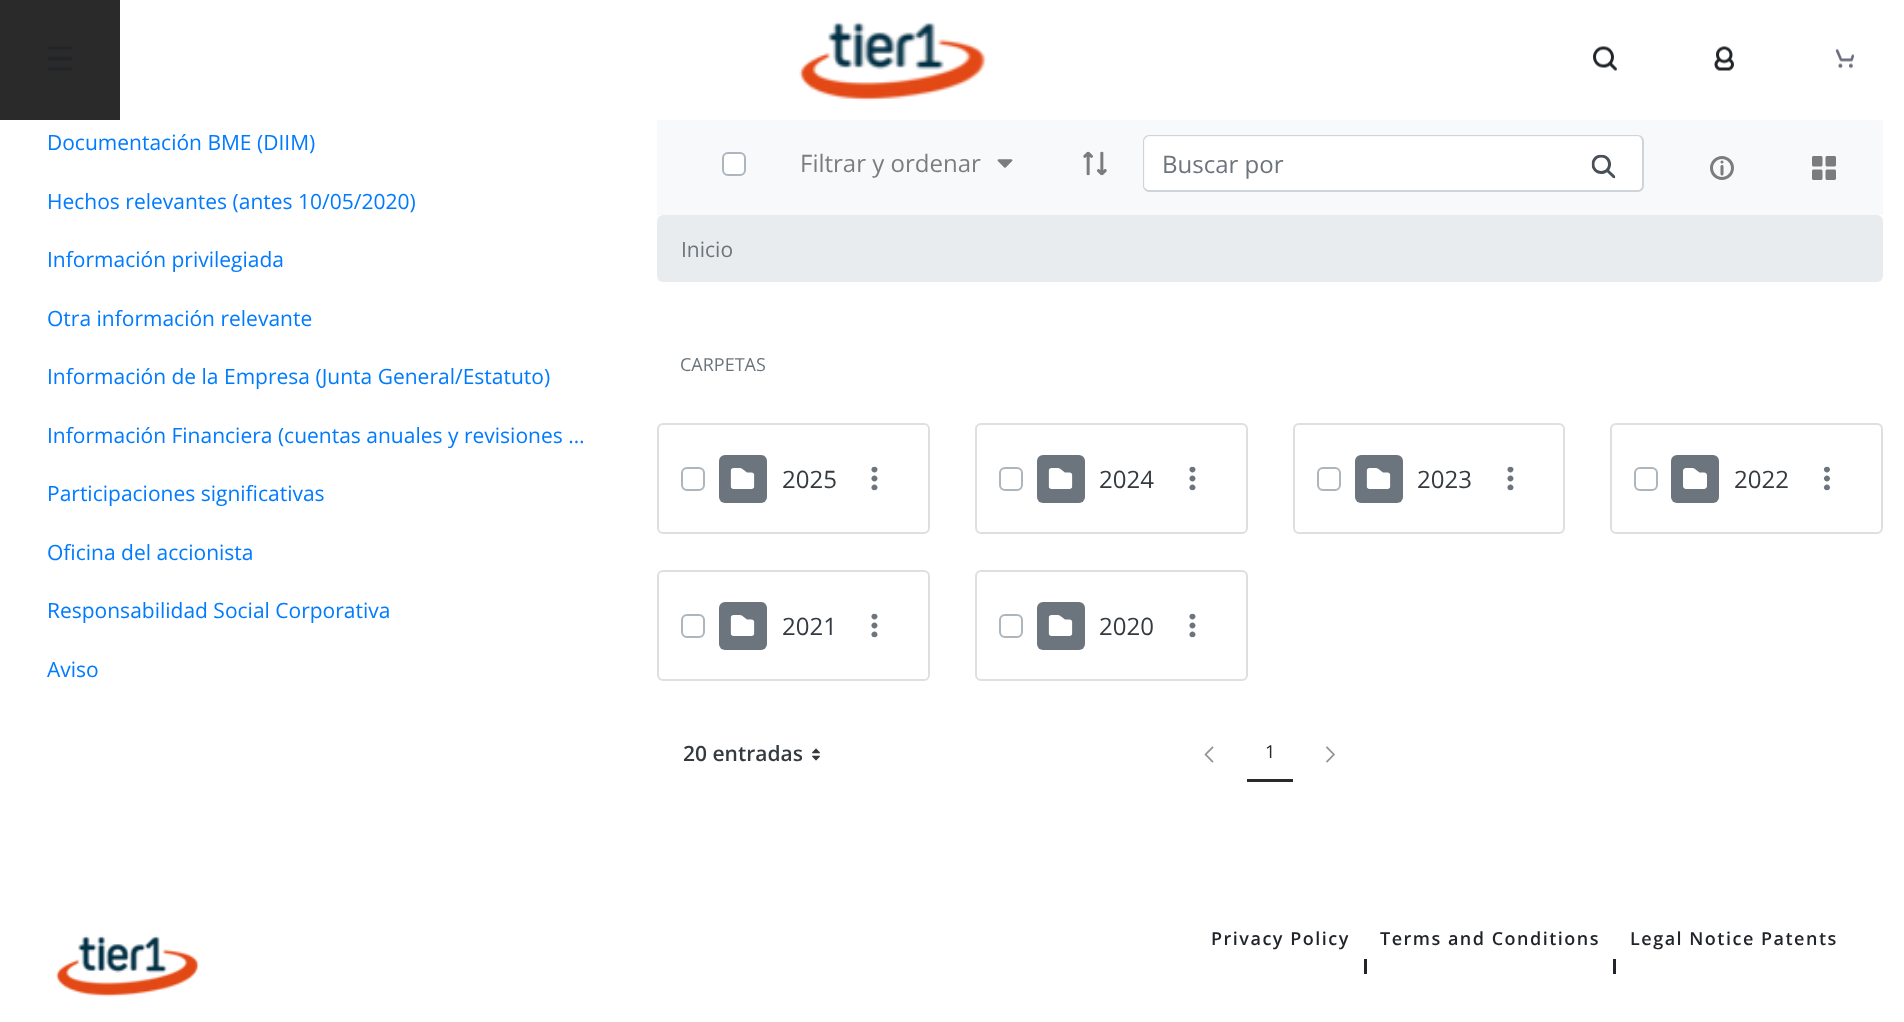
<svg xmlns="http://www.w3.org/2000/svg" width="1904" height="1022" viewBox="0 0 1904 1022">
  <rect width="100%" height="100%" fill="rgb(255,255,255)"/>
  <rect x="0" y="0" width="120" height="120" fill="rgb(42,42,42)"/>
  <image x="48" y="46" width="24" height="25" href="pic1.png"/>
  <image x="799" y="21" width="188" height="80" href="pic2.png"/>
  <image x="1593" y="46" width="24" height="25" href="pic3.png"/>
  <image x="1714" y="46" width="20" height="25" href="pic4.png"/>
  <image x="1835" y="48" width="20" height="21" href="pic5.png"/>
  <g font-family="Open Sans" font-size="21" fill="rgb(0,123,255)">
    <text x="47" y="150">Documentación BME (DIIM)</text>
    <text x="47" y="209">Hechos relevantes (antes 10/05/2020)</text>
    <text x="47" y="267">Información privilegiada</text>
    <text x="47" y="326">Otra información relevante</text>
    <text x="47" y="384">Información de la Empresa (Junta General/Estatuto)</text>
    <text x="47" y="443">Información Financiera (cuentas anuales y revisiones …</text>
    <text x="47" y="501">Participaciones significativas</text>
    <text x="47" y="560">Oficina del accionista</text>
    <text x="47" y="618">Responsabilidad Social Corporativa</text>
    <text x="47" y="677">Aviso</text>
  </g>
  <rect x="657" y="120" width="1226" height="95" fill="rgb(248,249,250)"/>
  <rect x="723" y="153" width="22" height="22" rx="5" fill="rgb(255,255,255)" stroke="rgb(173,181,189)" stroke-width="2"/>
  <text x="800" y="172" font-family="Open Sans" font-size="24" fill="rgb(124,125,125)">Filtrar y ordenar</text>
  <image x="997" y="159" width="16" height="9" href="pic6.png"/>
  <image x="1083" y="151" width="24" height="25" href="pic7.png"/>
  <path d="M1150 137H1565V191H1150C1147 191 1145 189 1145 186V142C1145 139 1147 137 1150 137Z" fill="rgb(255,255,255)"/>
  <path d="M1149 135H1564V192H1149C1146 192 1143 189 1143 186V141C1143 138 1146 135 1149 135ZM1149 136H1564V190H1149C1147 190 1144 188 1144 186V141C1144 139 1147 136 1149 136Z" fill="rgb(206,212,218)" fill-rule="evenodd"/>
  <text x="1162" y="173" font-family="Open Sans" font-size="24" fill="rgb(108,117,125)">Buscar por</text>
  <path d="M1565 137H1638C1641 137 1643 139 1643 142V186C1643 189 1641 191 1638 191H1565Z" fill="rgb(255,255,255)"/>
  <path d="M1564 135H1638C1641 135 1644 138 1644 141V186C1644 189 1641 192 1638 192H1564ZM1564 136H1638C1640 136 1642 139 1642 141V186C1642 188 1640 190 1638 190H1564Z" fill="rgb(206,212,218)" fill-rule="evenodd"/>
  <image x="1591" y="154" width="25" height="25" href="pic8.png"/>
  <image x="1710" y="156" width="24" height="24" href="pic9.png"/>
  <image x="1812" y="156" width="24" height="24" href="pic10.png"/>
  <rect x="657" y="215" width="1226" height="67" rx="6" fill="rgb(233,236,239)"/>
  <text x="681" y="257" font-family="Open Sans" font-size="21" fill="rgb(108,117,125)">Inicio</text>
  <text x="680" y="371" font-family="Open Sans" font-size="18" fill="rgb(108,117,125)">CARPETAS</text>
  <rect x="658" y="424" width="271" height="109" rx="5" fill="none" stroke="rgb(223,223,223)" stroke-width="2"/>
  <rect x="682" y="468" width="22" height="22" rx="5" fill="none" stroke="rgb(173,181,189)" stroke-width="2"/>
  <rect x="719" y="455" width="48" height="48" rx="6" fill="rgb(108,117,125)"/>
  <image x="730" y="468" width="25" height="21" href="pic11.png"/>
  <text x="782" y="488" font-family="Open Sans" font-size="24" fill="rgb(52,58,64)">2025</text>
  <image x="871" y="466" width="7" height="25" href="pic12.png"/>
  <rect x="976" y="424" width="271" height="109" rx="5" fill="none" stroke="rgb(223,223,223)" stroke-width="2"/>
  <rect x="1000" y="468" width="22" height="22" rx="5" fill="none" stroke="rgb(173,181,189)" stroke-width="2"/>
  <rect x="1037" y="455" width="48" height="48" rx="6" fill="rgb(108,117,125)"/>
  <image x="1048" y="468" width="25" height="21" href="pic11.png"/>
  <text x="1099" y="488" font-family="Open Sans" font-size="24" fill="rgb(52,58,64)">2024</text>
  <image x="1189" y="466" width="7" height="25" href="pic12.png"/>
  <rect x="1294" y="424" width="270" height="109" rx="5" fill="none" stroke="rgb(223,223,223)" stroke-width="2"/>
  <rect x="1318" y="468" width="22" height="22" rx="5" fill="none" stroke="rgb(173,181,189)" stroke-width="2"/>
  <rect x="1355" y="455" width="48" height="48" rx="6" fill="rgb(108,117,125)"/>
  <image x="1366" y="468" width="25" height="21" href="pic11.png"/>
  <text x="1417" y="488" font-family="Open Sans" font-size="24" fill="rgb(52,58,64)">2023</text>
  <image x="1507" y="466" width="7" height="25" href="pic12.png"/>
  <rect x="1611" y="424" width="271" height="109" rx="5" fill="none" stroke="rgb(223,223,223)" stroke-width="2"/>
  <rect x="1635" y="468" width="22" height="22" rx="5" fill="none" stroke="rgb(173,181,189)" stroke-width="2"/>
  <rect x="1671" y="455" width="48" height="48" rx="6" fill="rgb(108,117,125)"/>
  <image x="1683" y="468" width="24" height="21" href="pic13.png"/>
  <text x="1734" y="488" font-family="Open Sans" font-size="24" fill="rgb(52,58,64)">2022</text>
  <image x="1823" y="466" width="7" height="25" href="pic14.png"/>
  <rect x="658" y="571" width="271" height="109" rx="5" fill="none" stroke="rgb(223,223,223)" stroke-width="2"/>
  <rect x="682" y="615" width="22" height="22" rx="5" fill="none" stroke="rgb(173,181,189)" stroke-width="2"/>
  <rect x="719" y="602" width="48" height="48" rx="6" fill="rgb(108,117,125)"/>
  <image x="730" y="615" width="25" height="21" href="pic11.png"/>
  <text x="782" y="635" font-family="Open Sans" font-size="24" fill="rgb(52,58,64)">2021</text>
  <image x="871" y="613" width="7" height="25" href="pic12.png"/>
  <rect x="976" y="571" width="271" height="109" rx="5" fill="none" stroke="rgb(223,223,223)" stroke-width="2"/>
  <rect x="1000" y="615" width="22" height="22" rx="5" fill="none" stroke="rgb(173,181,189)" stroke-width="2"/>
  <rect x="1037" y="602" width="48" height="48" rx="6" fill="rgb(108,117,125)"/>
  <image x="1048" y="615" width="25" height="21" href="pic11.png"/>
  <text x="1099" y="635" font-family="Open Sans" font-size="24" fill="rgb(52,58,64)">2020</text>
  <image x="1189" y="613" width="7" height="25" href="pic12.png"/>
  <text x="683" y="761" font-family="Open Sans" font-size="21" font-weight="600" fill="rgb(52,58,64)">20 entradas</text>
  <image x="812" y="748" width="8" height="13" href="pic15.png"/>
  <image x="1204" y="746" width="10" height="17" href="pic16.png"/>
  <rect x="1247" y="779" width="46" height="3" fill="rgb(42,42,42)"/>
  <text x="1265" y="758" font-family="Open Sans" font-size="18" fill="rgb(42,42,42)">1</text>
  <image x="1326" y="746" width="9" height="17" href="pic17.png"/>
  <image x="55" y="935" width="145" height="62" href="pic18.png"/>
  <g font-family="Open Sans" font-size="18" font-weight="600" letter-spacing="1.5" fill="rgb(33,37,41)">
    <text x="1211" y="945">Privacy Policy</text>
    <text x="1380" y="945">Terms and Conditions</text>
  </g>
  <rect x="1364" y="959" width="3" height="15" fill="rgb(33,37,41)"/>
  <text x="1630" y="945" font-family="Open Sans" font-size="18" font-weight="600" letter-spacing="1.5" fill="rgb(33,37,41)">Legal Notice Patents</text>
  <rect x="1613" y="959" width="3" height="15" fill="rgb(33,37,41)"/>
</svg>
